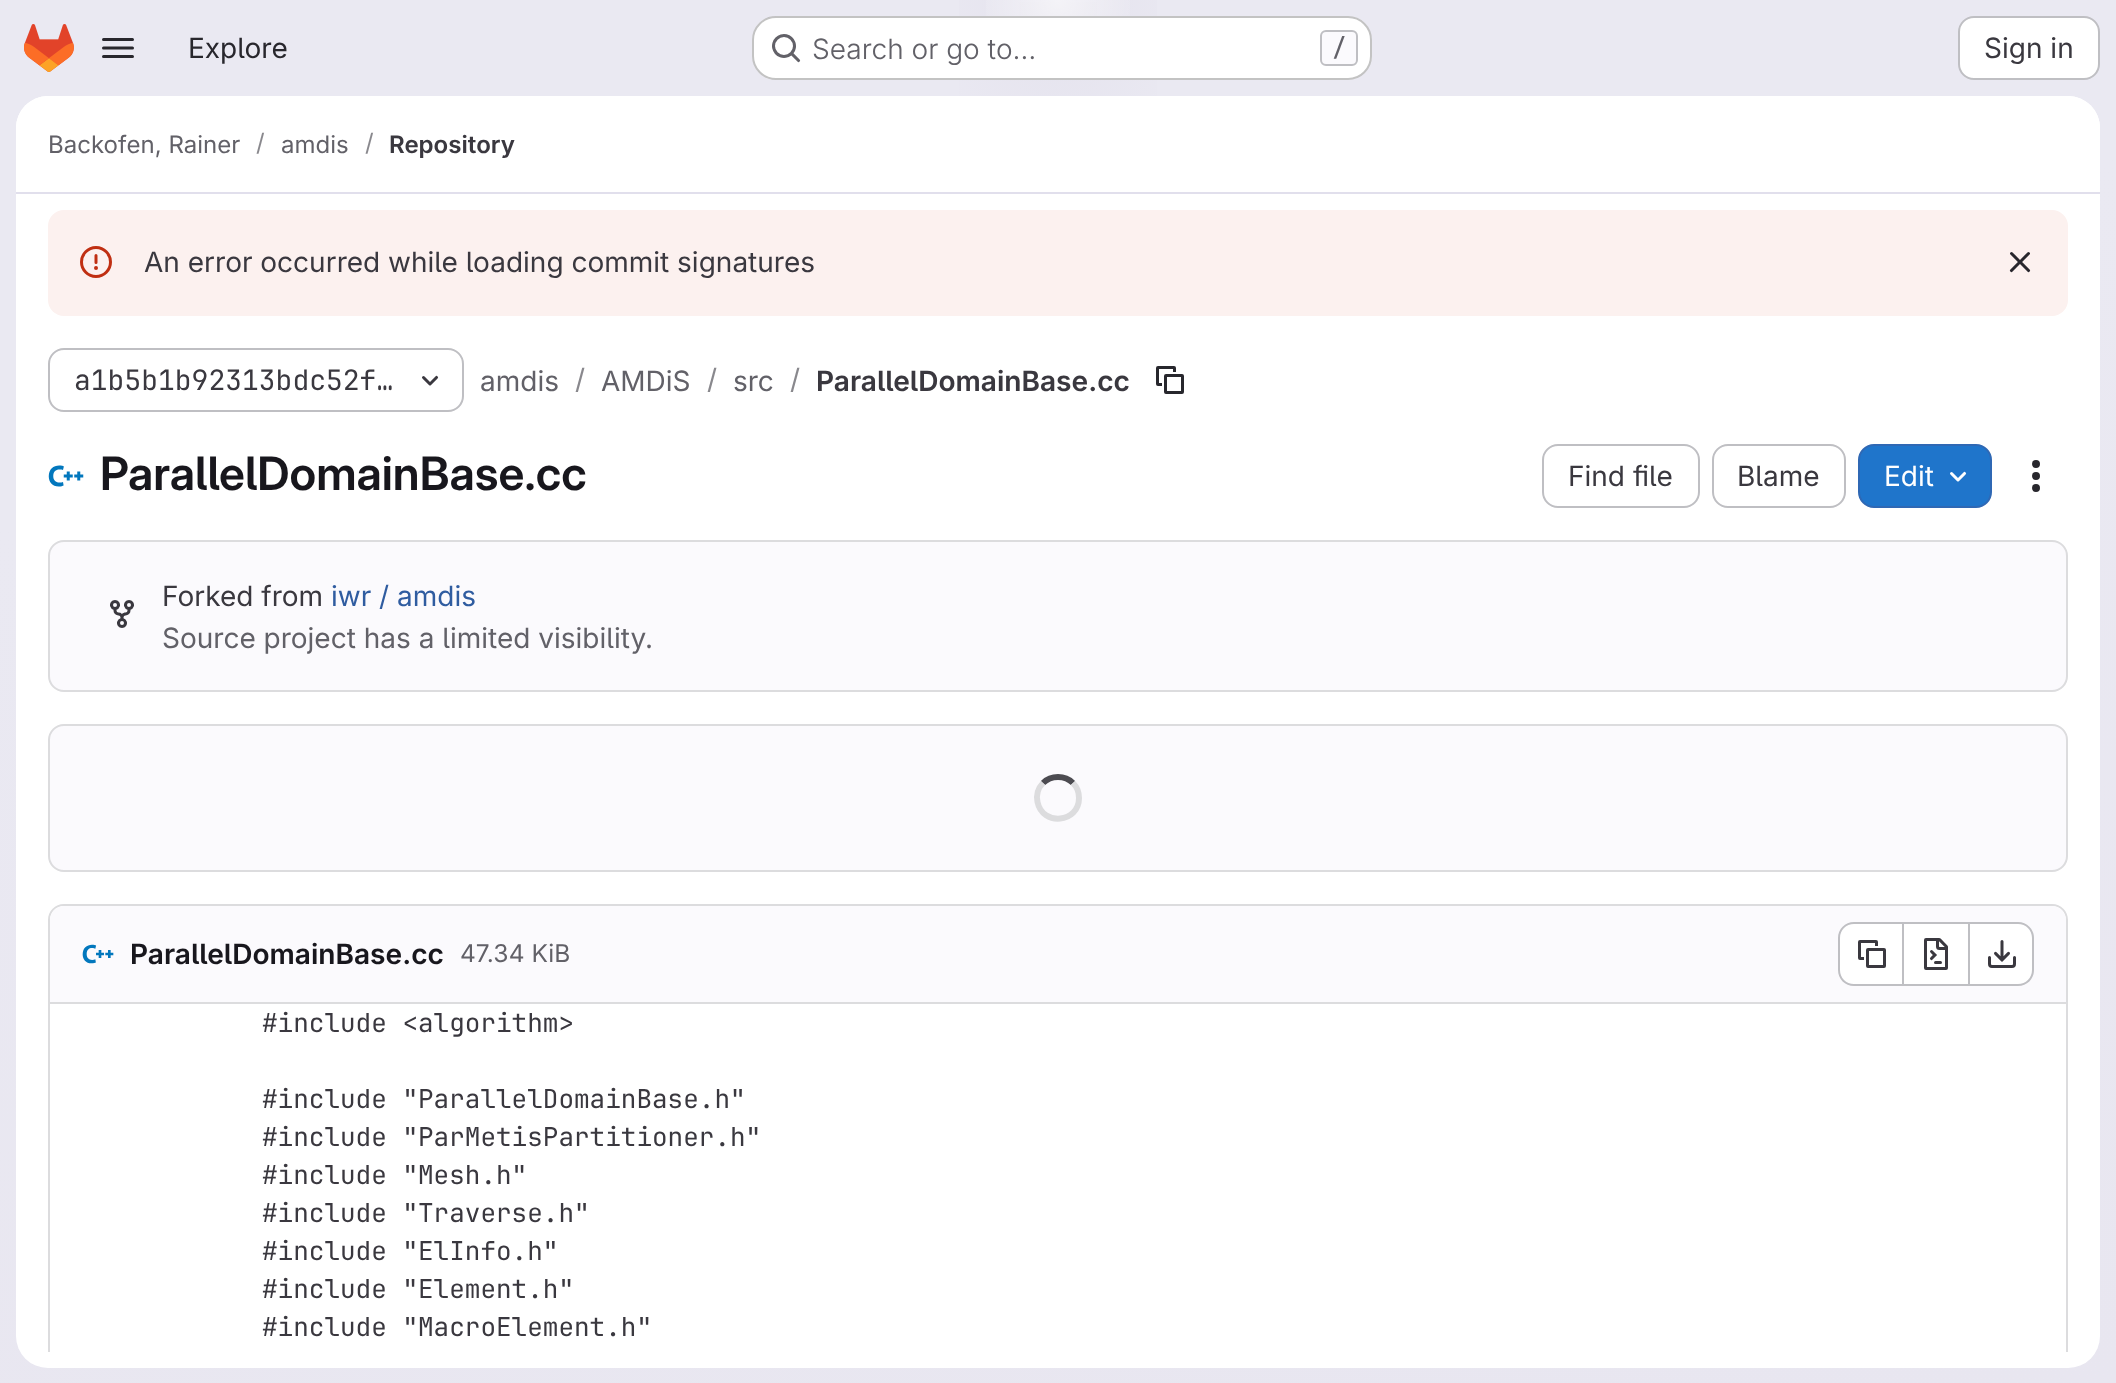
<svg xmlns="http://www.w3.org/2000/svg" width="2116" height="1383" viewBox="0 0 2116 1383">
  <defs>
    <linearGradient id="g1" gradientUnits="userSpaceOnUse" x1="1208" y1="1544" x2="908" y2="-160"><stop offset="0" stop-color="rgb(232,230,240)"/><stop offset="0.7" stop-color="rgb(234,233,242)"/></linearGradient>
    <radialGradient id="g2" gradientUnits="userSpaceOnUse" cx="0" cy="0" r="1" gradientTransform="matrix(1058 0 0 1384 1058 0)"><stop offset="0" stop-color="rgb(228,226,237)"/><stop offset="0.13" stop-color="rgb(228,226,237)" stop-opacity="0"/></radialGradient>
    <radialGradient id="g3" gradientUnits="userSpaceOnUse" cx="0" cy="0" r="1" gradientTransform="matrix(1058 0 0 1384 1058 0)"><stop offset="0" stop-color="rgb(228,226,236)"/><stop offset="0.09" stop-color="rgb(228,226,236)" stop-opacity="0"/></radialGradient>
    <radialGradient id="g4" gradientUnits="userSpaceOnUse" cx="1058" cy="0" r="1742"><stop offset="0" stop-color="rgb(255,255,255)" stop-opacity="0.6"/><stop offset="0.05" stop-color="rgb(255,255,255)" stop-opacity="0"/></radialGradient>
    <clipPath id="clip1"><rect x="16" y="194" width="2084" height="1158"/></clipPath>
  </defs>
  <rect width="100%" height="100%" fill="rgb(255,255,255)"/>
  <rect x="0" y="0" width="2116" height="1383" fill="url(#g1)"/>
  <rect x="959" y="0" width="198" height="96" fill="url(#g2)"/>
  <rect x="1019" y="2" width="78" height="49" fill="url(#g3)"/>
  <rect x="986" y="0" width="144" height="73" fill="url(#g4)"/>
  <image x="24" y="24" width="50" height="48" href="pic1.png"/>
  <image x="102" y="38" width="32" height="20" href="pic2.png"/>
  <text x="188" y="58" font-family="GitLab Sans" font-size="28" fill="rgb(40,39,45)">Explore</text>
  <rect x="752" y="16" width="620" height="64" rx="24" fill="rgb(255,255,255)"/>
  <rect x="753" y="17" width="618" height="62" rx="23" fill="none" stroke="rgba(5,5,6,0.24)" stroke-width="2"/>
  <image x="772" y="34" width="29" height="29" href="pic3.png"/>
  <text x="812" y="59" font-family="GitLab Sans" font-size="28" font-weight="300" fill="rgb(98,97,104)">Search or go to…</text>
  <rect x="1321" y="31" width="36" height="34" rx="5" fill="rgb(251,250,253)" stroke="rgb(191,191,195)" stroke-width="2"/>
  <text x="1332" y="56" font-family="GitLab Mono" font-size="24" font-weight="500" fill="rgb(98,97,104)">/</text>
  <rect x="1959" y="17" width="140" height="62" rx="15" fill="rgb(255,255,255)" stroke="rgb(191,191,195)" stroke-width="2"/>
  <text x="1984" y="58" font-family="GitLab Sans" font-size="28" fill="rgb(58,56,63)">Sign in</text>
  <rect x="16" y="96" width="2084" height="1272" rx="32" fill="rgb(255,255,255)"/>
  <path d="M48 96H2068C2085.5 96 2100 110.5 2100 128V194H16V128C16 110.5 30.5 96 48 96Z" fill="rgb(255,255,255)"/>
  <rect x="16" y="192" width="2084" height="2" fill="rgb(225,223,236)"/>
  <text x="48" y="153" font-family="GitLab Sans" font-size="24" fill="rgb(98,97,104)">Backofen, Rainer</text>
  <text x="256" y="151" font-family="GitLab Sans" font-size="24" fill="rgb(137,136,141)">/</text>
  <text x="281" y="153" font-family="GitLab Sans" font-size="24" fill="rgb(98,97,104)">amdis</text>
  <text x="365" y="151" font-family="GitLab Sans" font-size="24" fill="rgb(137,136,141)">/</text>
  <text x="389" y="153" font-family="GitLab Sans" font-size="24" font-weight="600" fill="rgb(58,56,63)">Repository</text>
  <rect x="48" y="210" width="2020" height="106" rx="16" fill="rgb(252,241,239)"/>
  <image x="80" y="246" width="32" height="32" href="pic4.png"/>
  <text x="144" y="272" font-family="GitLab Sans" font-size="28" fill="rgb(58,56,63)">An error occurred while loading commit signatures</text>
  <image x="2009" y="252" width="22" height="21" href="pic5.png"/>
  <rect x="49" y="349" width="414" height="62" rx="15" fill="none" stroke="rgb(191,191,195)" stroke-width="2"/>
  <text x="74" y="390" font-family="GitLab Mono" font-size="28" fill="rgb(58,56,63)">a1b5b1b92313bdc52f…</text>
  <image x="422" y="375" width="17" height="11" href="pic6.png"/>
  <text x="480" y="391" font-family="GitLab Sans" font-size="28" fill="rgb(98,97,104)">amdis</text>
  <text x="575" y="389" font-family="GitLab Sans" font-size="28" fill="rgb(137,136,141)">/</text>
  <text x="601" y="391" font-family="GitLab Sans" font-size="28" fill="rgb(98,97,104)">AMDiS</text>
  <text x="707" y="389" font-family="GitLab Sans" font-size="28" fill="rgb(137,136,141)">/</text>
  <text x="733" y="391" font-family="GitLab Sans" font-size="28" fill="rgb(98,97,104)">src</text>
  <text x="790" y="389" font-family="GitLab Sans" font-size="28" fill="rgb(137,136,141)">/</text>
  <text x="816" y="391" font-family="GitLab Sans" font-size="28" font-weight="600" fill="rgb(58,56,63)">ParallelDomainBase.cc</text>
  <image x="1156" y="366" width="28" height="28" href="pic7.png"/>
  <image x="48" y="465" width="36" height="22" href="pic8.png"/>
  <text x="100" y="490" font-family="'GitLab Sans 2'" font-size="46" font-weight="600" fill="rgb(24,23,29)">ParallelDomainBase.cc</text>
  <rect x="1543" y="445" width="156" height="62" rx="15" fill="none" stroke="rgb(191,191,195)" stroke-width="2"/>
  <text x="1568" y="486" font-family="GitLab Sans" font-size="28" fill="rgb(58,56,63)">Find file</text>
  <rect x="1713" y="445" width="132" height="62" rx="15" fill="none" stroke="rgb(191,191,195)" stroke-width="2"/>
  <text x="1737" y="486" font-family="GitLab Sans" font-size="28" fill="rgb(58,56,63)">Blame</text>
  <rect x="1859" y="445" width="132" height="62" rx="15" fill="rgb(31,117,203)" stroke="rgb(47,104,180)" stroke-width="2"/>
  <text x="1884" y="486" font-family="GitLab Sans" font-size="28" fill="rgb(255,255,255)">Edit</text>
  <image x="1950" y="471" width="17" height="11" href="pic9.png"/>
  <image x="2032" y="460" width="8" height="32" href="pic10.png"/>
  <rect x="49" y="541" width="2018" height="150" rx="15" fill="rgb(251,250,253)" stroke="rgb(220,220,222)" stroke-width="2"/>
  <image x="110" y="600" width="24" height="28" href="pic11.png"/>
  <text x="162" y="606" font-family="GitLab Sans" font-size="28" fill="rgb(58,56,63)">Forked from</text>
  <text x="331" y="606" font-family="GitLab Sans" font-size="28" fill="rgb(47,92,160)">iwr / amdis</text>
  <text x="162" y="648" font-family="GitLab Sans" font-size="28" fill="rgb(98,97,104)">Source project has a limited visibility.</text>
  <rect x="49" y="725" width="2018" height="146" rx="15" fill="rgb(251,250,253)" stroke="rgb(220,220,222)" stroke-width="2"/>
  <path d="M1043 783C1051 775 1065 775 1073 783" fill="none" stroke="rgb(76,75,81)" stroke-width="6"/>
  <path d="M1073 783C1077 787 1079 792.5 1079 798C1079 823 1042.5 826.5 1037.5 802C1036 795.5 1038 788 1043 783" fill="none" stroke="rgb(220,220,222)" stroke-width="6"/>
  <g clip-path="url(#clip1)">
    <path d="M64 904C55 904 48 911 48 920V1368H50V920C50 912 56 906 64 906H2052C2060 906 2066 912 2066 920V1368H2068V920C2068 911 2061 904 2052 904Z" fill="rgb(220,220,222)"/>
  </g>
  <path d="M64 906H2052C2059.5 906 2066 912.5 2066 920V1004H50V920C50 912.5 56.5 906 64 906Z" fill="rgb(251,250,253)"/>
  <rect x="50" y="1002" width="2016" height="2" fill="rgb(220,220,222)"/>
  <image x="82" y="944" width="32" height="20" href="pic12.png"/>
  <text x="130" y="964" font-family="GitLab Sans" font-size="28" font-weight="600" fill="rgb(24,23,29)">ParallelDomainBase.cc</text>
  <text x="460" y="962" font-family="GitLab Sans" font-size="24.5" fill="rgb(98,97,104)">47.34 KiB</text>
  <path d="M1854 924H1902V984H1854C1846.5 984 1840 977.5 1840 970V938C1840 930.5 1846.5 924 1854 924Z" fill="rgb(255,255,255)"/>
  <path d="M1854 922H1902V986H1854C1845 986 1838 979 1838 970V938C1838 929 1845 922 1854 922ZM1854 924H1902V984H1854C1846 984 1840 978 1840 970V938C1840 930 1846 924 1854 924Z" fill="rgb(191,191,195)" fill-rule="evenodd"/>
  <image x="1858" y="940" width="28" height="28" href="pic13.png"/>
  <rect x="1904" y="924" width="64" height="60" fill="rgb(255,255,255)"/>
  <rect x="1904" y="922" width="64" height="2" fill="rgb(191,191,195)"/>
  <rect x="1904" y="984" width="64" height="2" fill="rgb(191,191,195)"/>
  <rect x="1902" y="922" width="2" height="64" fill="rgb(191,191,195)"/>
  <image x="1924" y="938" width="24" height="32" href="pic14.png"/>
  <path d="M1970 924H2018C2025.5 924 2032 930.5 2032 938V970C2032 977.5 2025.5 984 2018 984H1970Z" fill="rgb(255,255,255)"/>
  <path d="M1970 922H2018C2027 922 2034 929 2034 938V970C2034 979 2027 986 2018 986H1970ZM1970 924H2018C2026 924 2032 930 2032 938V970C2032 978 2026 984 2018 984H1970Z" fill="rgb(191,191,195)" fill-rule="evenodd"/>
  <rect x="1968" y="922" width="2" height="64" fill="rgb(191,191,195)"/>
  <image x="1988" y="940" width="28" height="28" href="pic15.png"/>
  <g font-family="GitLab Mono" font-size="26" fill="rgb(58,56,63)">
    <text x="262" y="1032">#include &lt;algorithm&gt;</text>
    <text>
      <tspan x="262" y="1108">#include "ParallelDomainBase.h"</tspan>
      <tspan x="262" y="1146">#include "ParMetisPartitioner.h"</tspan>
      <tspan x="262" y="1184">#include "Mesh.h"</tspan>
      <tspan x="262" y="1222">#include "Traverse.h"</tspan>
      <tspan x="262" y="1260">#include "ElInfo.h"</tspan>
      <tspan x="262" y="1298">#include "Element.h"</tspan>
      <tspan x="262" y="1336">#include "MacroElement.h"</tspan>
    </text>
  </g>
</svg>
